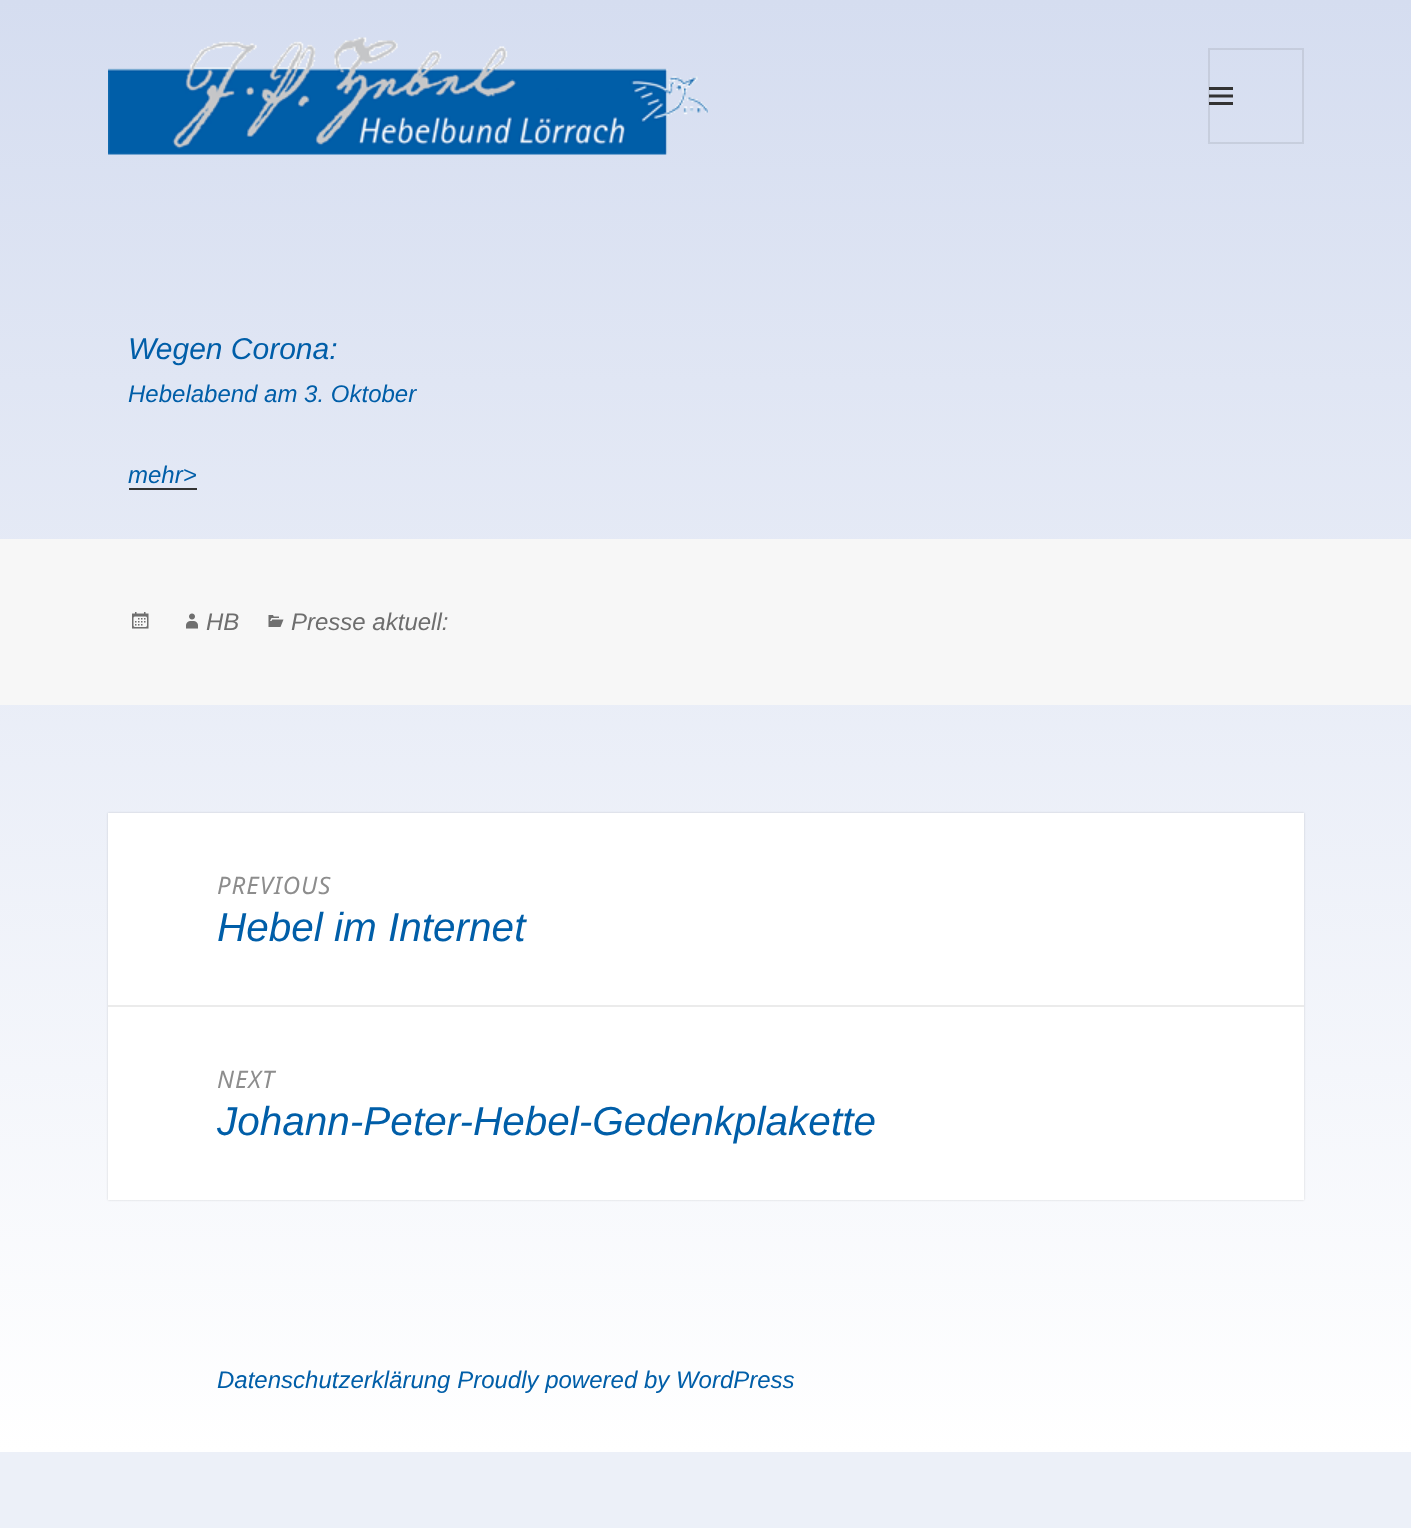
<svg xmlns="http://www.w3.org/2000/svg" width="1411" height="1528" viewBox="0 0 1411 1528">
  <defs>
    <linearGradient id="g1" gradientUnits="userSpaceOnUse" x1="706" y1="0" x2="706" y2="1452"><stop offset="0" stop-color="rgb(213,221,240)"/><stop offset="1" stop-color="rgb(255,255,255)"/></linearGradient>
  </defs>
  <rect width="100%" height="100%" fill="rgb(236,240,248)"/>
  <rect x="0" y="0" width="1411" height="1452" fill="url(#g1)"/>
  <image x="108" y="37" width="600" height="118" href="pic1.png"/>
  <rect x="1209" y="49" width="94" height="94" fill="none" stroke="rgba(51,51,51,0.1)" stroke-width="2"/>
  <image x="1209" y="87" width="24" height="18" href="pic2.png"/>
  <text x="128" y="359" font-family="Liberation Sans" font-size="30" font-style="italic" fill="rgb(0,94,168)">Wegen Corona:</text>
  <g font-family="Liberation Sans" font-size="24" font-style="italic" fill="rgb(0,94,168)">
    <text x="128" y="402">Hebelabend am 3. Oktober</text>
    <text x="128" y="483">mehr&gt;</text>
  </g>
  <rect x="129" y="488" width="68" height="2" fill="rgb(51,51,51)"/>
  <rect x="0" y="539" width="1411" height="166" fill="rgb(247,247,247)"/>
  <image x="132" y="612" width="17" height="17" href="pic3.png"/>
  <image x="186" y="613" width="12" height="16" href="pic4.png"/>
  <text x="206" y="630" font-family="Liberation Sans" font-size="24" font-style="italic" fill="rgb(110,110,110)">HB</text>
  <image x="268" y="615" width="16" height="12" href="pic5.png"/>
  <text x="291" y="630" font-family="Liberation Sans" font-size="24" font-style="italic" fill="rgb(110,110,110)">Presse aktuell:</text>
  <rect x="108" y="813" width="1196" height="387" fill="rgba(0,0,0,0.15)" filter="blur(1px)"/>
  <rect x="108" y="813" width="1196" height="387" fill="rgb(255,255,255)"/>
  <text x="217" y="894" font-family="Noto Sans" font-size="24" font-style="italic" letter-spacing="1" fill="rgb(141,141,141)">PREVIOUS</text>
  <text x="217" y="941" font-family="Liberation Sans" font-size="40.5" font-style="italic" fill="rgb(0,94,168)">Hebel im Internet</text>
  <rect x="108" y="1005" width="1196" height="2" fill="rgb(235,235,235)"/>
  <text x="217" y="1088" font-family="Noto Sans" font-size="24" font-style="italic" letter-spacing="1" fill="rgb(141,141,141)">NEXT</text>
  <text x="217" y="1135" font-family="Liberation Sans" font-size="40.5" font-style="italic" fill="rgb(0,94,168)">Johann-Peter-Hebel-Gedenkplakette</text>
  <text x="217" y="1388" font-family="Liberation Sans" font-size="24" font-style="italic" fill="rgb(0,94,168)">Datenschutzerklärung Proudly powered by WordPress</text>
</svg>
